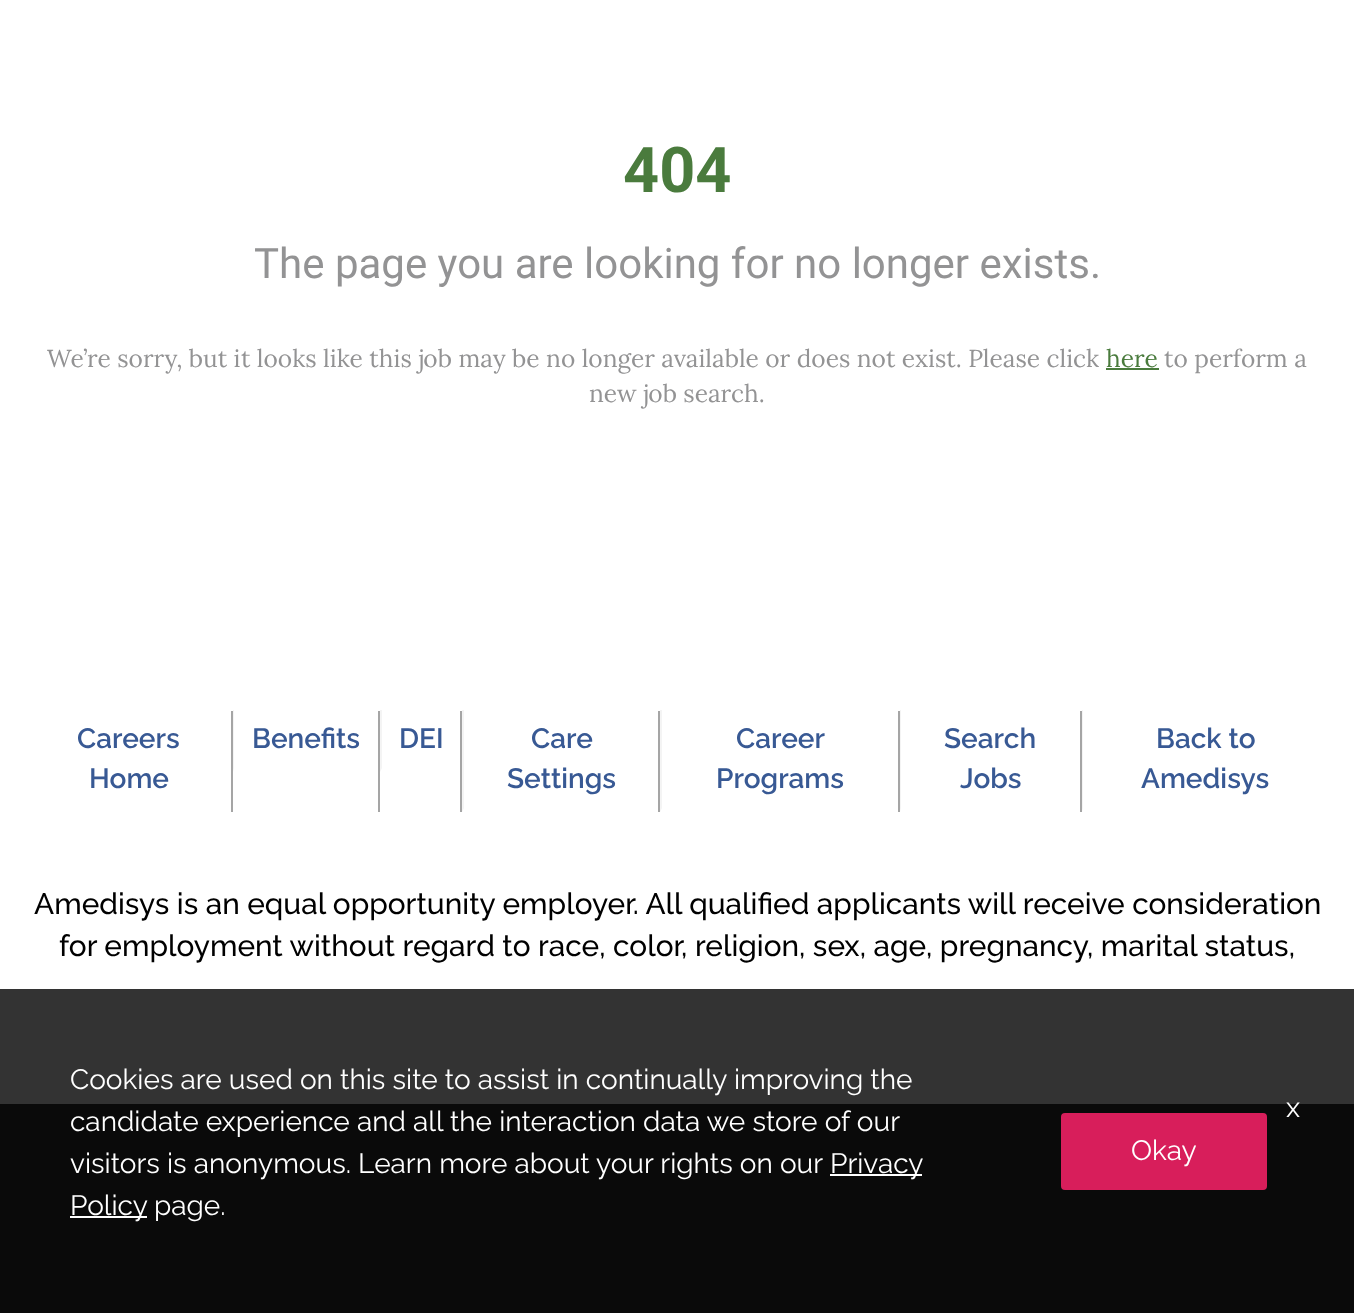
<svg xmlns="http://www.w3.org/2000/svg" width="1354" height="1313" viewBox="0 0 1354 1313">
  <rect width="100%" height="100%" fill="rgb(255,255,255)"/>
  <text x="623" y="192" font-family="Roboto" font-size="63" font-weight="bold" fill="rgb(74,123,61)">404</text>
  <text x="254" y="278" font-family="Roboto" font-size="42" fill="rgb(147,147,148)">The page you are looking for no longer exists.</text>
  <text x="47" y="367" font-family="Lora" font-size="24.5" fill="rgb(147,147,148)">We’re sorry, but it looks like this job may be no longer available or does not exist. Please click</text>
  <text x="1106" y="367" font-family="Lora" font-size="24.5" fill="rgb(74,123,61)">here</text>
  <rect x="1106" y="368" width="53" height="2" fill="rgb(74,123,61)"/>
  <g font-family="Lora" font-size="24.5" fill="rgb(147,147,148)">
    <text x="1164" y="367">to perform a</text>
    <text x="589" y="402">new job search.</text>
  </g>
  <g font-family="Raleway" font-size="28" font-weight="600" fill="rgb(56,89,148)">
    <text x="77" y="748">Careers</text>
    <text x="89" y="788">Home</text>
  </g>
  <rect x="231" y="711" width="2" height="101" fill="rgb(165,165,165)"/>
  <path d="M233 772V710H234V768Z" fill="rgb(244,244,244)"/>
  <text x="252" y="748" font-family="Raleway" font-size="28" font-weight="600" fill="rgb(56,89,148)">Benefits</text>
  <rect x="378" y="711" width="2" height="101" fill="rgb(165,165,165)"/>
  <path d="M380 772V710H382V768Z" fill="rgb(244,244,244)"/>
  <text x="399" y="748" font-family="Raleway" font-size="28" font-weight="600" fill="rgb(56,89,148)">DEI</text>
  <rect x="460" y="711" width="2" height="101" fill="rgb(165,165,165)"/>
  <path d="M462 812V710H464V808Z" fill="rgb(244,244,244)"/>
  <g font-family="Raleway" font-size="28" font-weight="600" fill="rgb(56,89,148)">
    <text x="531" y="748">Care</text>
    <text x="507" y="788">Settings</text>
  </g>
  <rect x="658" y="711" width="2" height="101" fill="rgb(165,165,165)"/>
  <path d="M660 812V710H662V808Z" fill="rgb(244,244,244)"/>
  <g font-family="Raleway" font-size="28" font-weight="600" fill="rgb(56,89,148)">
    <text x="736" y="748">Career</text>
    <text x="716" y="788">Programs</text>
  </g>
  <rect x="898" y="711" width="2" height="101" fill="rgb(165,165,165)"/>
  <path d="M900 812V710H901V808Z" fill="rgb(244,244,244)"/>
  <g font-family="Raleway" font-size="28" font-weight="600" fill="rgb(56,89,148)">
    <text x="944" y="748">Search</text>
    <text x="960" y="788">Jobs</text>
  </g>
  <rect x="1080" y="711" width="2" height="101" fill="rgb(165,165,165)"/>
  <path d="M1082 812V710H1083V808Z" fill="rgb(244,244,244)"/>
  <g font-family="Raleway" font-size="28" font-weight="600" fill="rgb(56,89,148)">
    <text x="1156" y="748">Back to</text>
    <text x="1141" y="788">Amedisys</text>
  </g>
  <g font-family="Raleway" font-size="29.75" font-weight="500" fill="rgb(0,0,0)">
    <text x="34" y="914">Amedisys is an equal opportunity employer. All qualified applicants will receive consideration</text>
    <text x="59" y="956">for employment without regard to race, color, religion, sex, age, pregnancy, marital status,</text>
  </g>
  <rect x="0" y="1104" width="1354" height="209" fill="rgb(52,52,52)"/>
  <rect x="0" y="989" width="1354" height="324" fill="rgba(0,0,0,0.8)"/>
  <g font-family="Raleway" font-size="28" fill="rgb(255,255,255)">
    <text>
      <tspan x="70" y="1089">Cookies are used on this site to assist in continually improving the</tspan>
      <tspan x="70" y="1131">candidate experience and all the interaction data we store of our</tspan>
      <tspan x="70" y="1173">visitors is anonymous. Learn more about your rights on our</tspan>
    </text>
  </g>
  <rect x="830" y="1174" width="92" height="2" fill="rgb(255,255,255)"/>
  <text x="830" y="1173" font-family="Raleway" font-size="28" fill="rgb(255,255,255)">Privacy</text>
  <rect x="70" y="1216" width="77" height="2" fill="rgb(255,255,255)"/>
  <g font-family="Raleway" font-size="28" fill="rgb(255,255,255)">
    <text x="70" y="1215">Policy</text>
    <text x="154" y="1215">page.</text>
  </g>
  <rect x="1061" y="1113" width="206" height="77" rx="4" fill="rgb(216,30,91)"/>
  <g font-family="Raleway" font-size="28" fill="rgb(255,255,255)">
    <text x="1131" y="1160">Okay</text>
    <text x="1286" y="1117">x</text>
  </g>
</svg>
